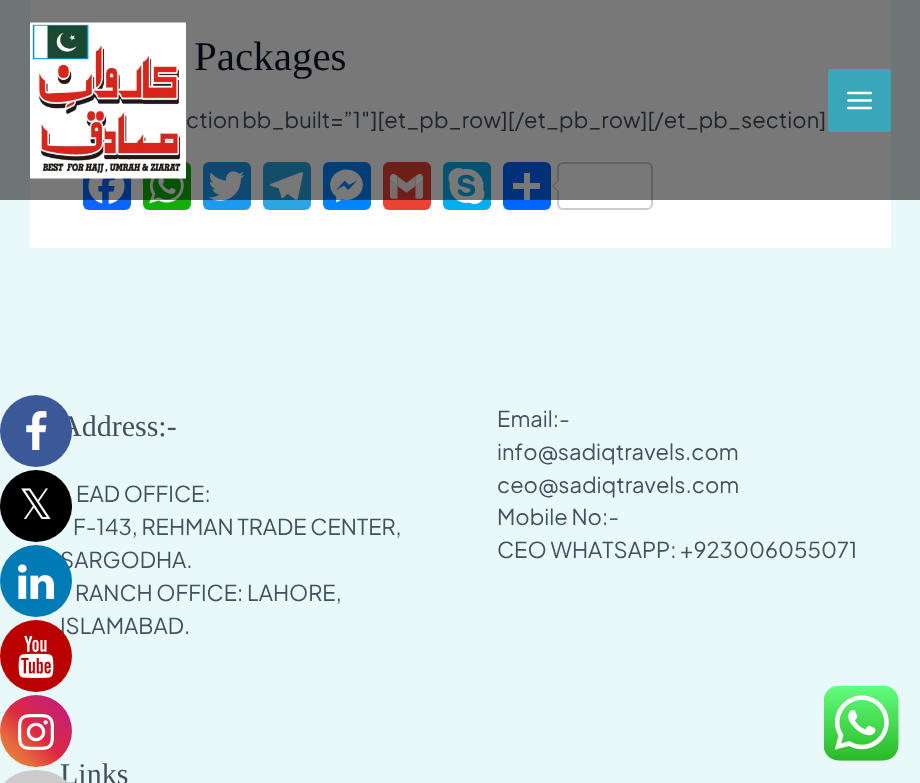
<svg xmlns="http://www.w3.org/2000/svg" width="920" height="783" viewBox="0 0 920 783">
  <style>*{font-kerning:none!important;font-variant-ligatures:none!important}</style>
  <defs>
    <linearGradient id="g1" gradientUnits="userSpaceOnUse" x1="0" y1="767" x2="72" y2="695"><stop offset="0" stop-color="rgb(240,148,51)"/><stop offset="0.25" stop-color="rgb(230,104,60)"/><stop offset="0.5" stop-color="rgb(220,39,67)"/><stop offset="0.75" stop-color="rgb(204,35,102)"/><stop offset="1" stop-color="rgb(188,24,136)"/></linearGradient>
  </defs>
  <rect width="100%" height="100%" fill="rgb(233,248,249)"/>
  <text x="60" y="436" font-family="Liberation Serif" font-size="30" fill="rgb(69,79,94)">Address:-</text>
  <circle cx="36" cy="431" r="36" fill="rgb(59,89,152)"/>
  <image x="26" y="411" width="21" height="39" href="pic1.png"/>
  <circle cx="36" cy="506" r="36" fill="rgb(0,0,0)"/>
  <text x="19" y="519" font-family="DejaVu Sans" font-size="42" fill="rgb(255,255,255)">𝕏</text>
  <text x="60" y="568" font-family="Plus Jakarta Sans" font-size="21.9" fill="rgb(69,79,94)">SARGODHA.</text>
  <circle cx="36" cy="581" r="36" fill="rgb(0,123,182)"/>
  <image x="18" y="564" width="36" height="35" href="pic2.png"/>
  <text x="60" y="634" font-family="Plus Jakarta Sans" font-size="21.9" fill="rgb(69,79,94)">ISLAMABAD.</text>
  <circle cx="36" cy="656" r="36" fill="rgb(187,0,0)"/>
  <image x="18" y="636" width="36" height="42" href="pic3.png"/>
  <text x="60" y="784" font-family="Liberation Serif" font-size="30" fill="rgb(69,79,94)">Links</text>
  <circle cx="36" cy="731" r="36" fill="url(#g1)"/>
  <image x="18" y="714" width="36" height="36" href="pic4.png"/>
  <rect x="0" y="770" width="72" height="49" rx="36" fill="rgb(204,204,204)"/>
  <rect x="30" y="0" width="861" height="248" fill="rgb(255,255,255)"/>
  <text x="194" y="70" font-family="Liberation Serif" font-size="41" fill="rgb(15,23,42)">Packages</text>
  <text x="186" y="128" word-spacing="-1" font-family="Plus Jakarta Sans" font-size="21.9" fill="rgb(69,79,94)">ction bb_built=”1″][et_pb_row][/et_pb_row][/et_pb_section]</text>
  <rect x="83" y="162" width="48" height="48" rx="6" fill="rgb(8,102,255)"/>
  <image x="88" y="178" width="37" height="26" href="pic7.png"/>
  <rect x="143" y="162" width="48" height="48" rx="6" fill="rgb(18,175,10)"/>
  <image x="149" y="178" width="35" height="26" href="pic8.png"/>
  <rect x="203" y="162" width="48" height="48" rx="6" fill="rgb(29,155,240)"/>
  <image x="208" y="171" width="37" height="30" href="pic9.png"/>
  <rect x="263" y="162" width="48" height="48" rx="6" fill="rgb(44,165,224)"/>
  <image x="270" y="172" width="33" height="28" href="pic10.png"/>
  <rect x="323" y="162" width="48" height="48" rx="6" fill="rgb(0,132,255)"/>
  <image x="330" y="169" width="33" height="34" href="pic11.png"/>
  <rect x="383" y="162" width="48" height="48" rx="6" fill="rgb(234,67,53)"/>
  <image x="390" y="174" width="33" height="25" href="pic12.png"/>
  <rect x="443" y="162" width="48" height="48" rx="6" fill="rgb(0,175,240)"/>
  <image x="448" y="168" width="37" height="36" href="pic13.png"/>
  <rect x="503" y="162" width="48" height="48" rx="6" fill="rgb(1,102,255)"/>
  <rect x="524" y="173" width="6" height="27" fill="rgb(255,255,255)"/>
  <rect x="513" y="183" width="27" height="6" fill="rgb(255,255,255)"/>
  <rect x="558" y="163" width="94" height="46" rx="5" fill="none" stroke="rgb(204,204,204)" stroke-width="2"/>
  <path d="M558 180V192L552 186Z" fill="rgb(204,204,204)"/>
  <path d="M559.5 180V192L553.5 186Z" fill="rgb(255,255,255)"/>
  <rect x="0" y="0" width="920" height="200" fill="rgba(0,0,0,0.53)"/>
  <image x="30" y="22" width="156" height="157" href="pic5.png"/>
  <rect x="828" y="69" width="63" height="63" rx="3" fill="rgb(58,166,185)"/>
  <image x="847" y="91" width="25" height="19" href="pic6.png"/>
  <g font-family="Plus Jakarta Sans" font-size="21.9" fill="rgb(69,79,94)">
    <text x="76" y="502">EAD OFFICE:</text>
    <text x="73" y="535">F-143, REHMAN TRADE CENTER,</text>
    <text x="75" y="601">RANCH OFFICE: LAHORE,</text>
    <text>
      <tspan x="497" y="427">Email:-</tspan>
      <tspan x="497" y="460">info@sadiqtravels.com</tspan>
      <tspan x="497" y="493">ceo@sadiqtravels.com</tspan>
      <tspan x="497" y="525">Mobile No:-</tspan>
      <tspan x="497" y="558">CEO WHATSAPP: +923006055071</tspan>
    </text>
  </g>
  <image x="824" y="686" width="75" height="75" href="pic14.png"/>
</svg>
